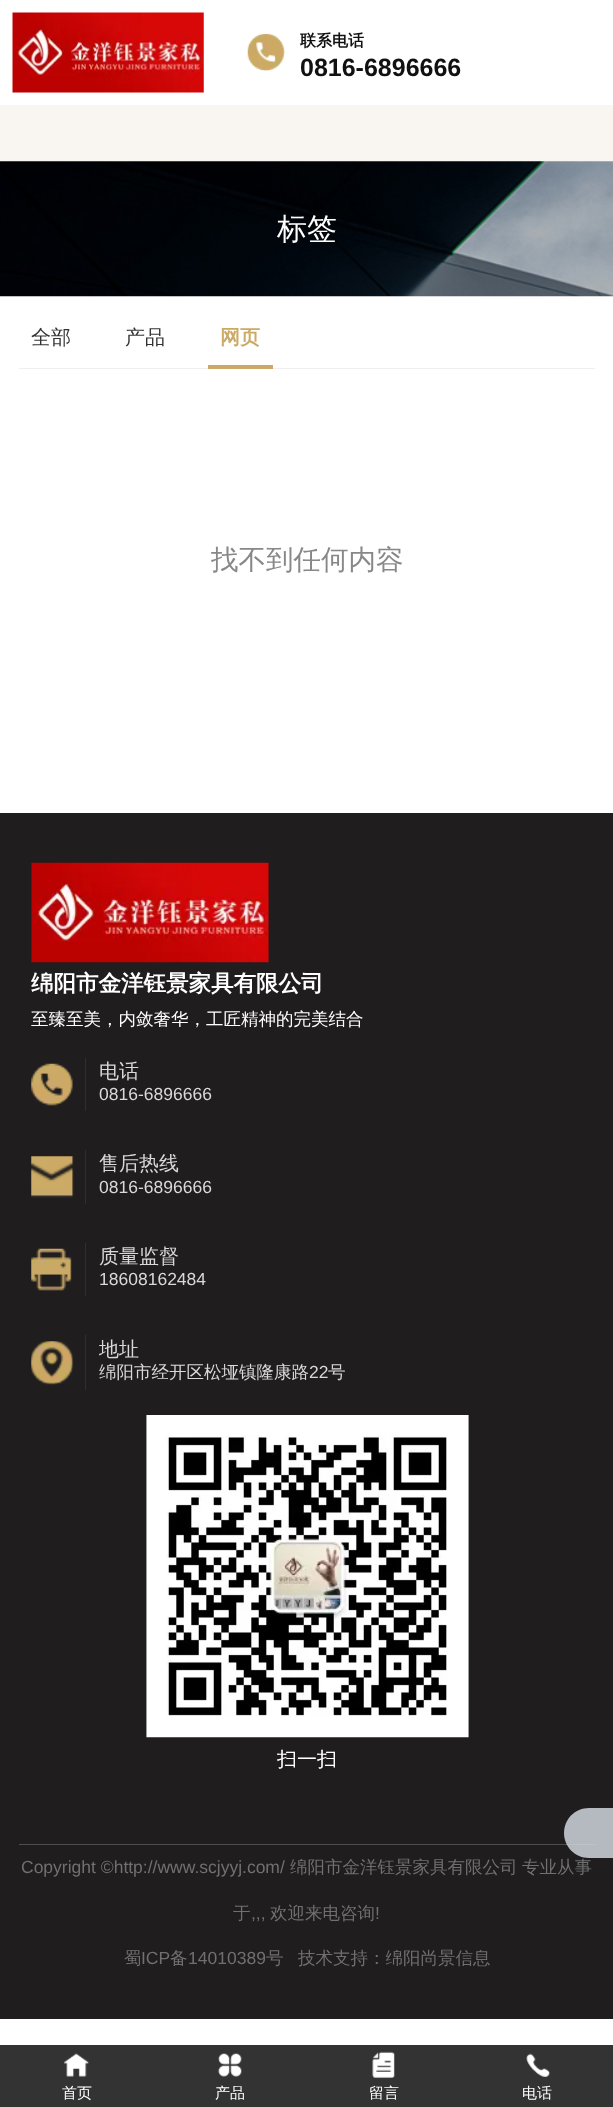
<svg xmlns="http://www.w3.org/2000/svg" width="613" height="2107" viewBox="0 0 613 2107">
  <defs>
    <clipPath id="clip1"><rect x="99" y="1154" width="484" height="20"/></clipPath>
  </defs>
  <rect width="100%" height="100%" fill="rgb(255,255,255)"/>
  <image x="12" y="12" width="192" height="81" href="pic1.png"/>
  <image x="247" y="33" width="38" height="38" href="pic2.png"/>
  <text x="300" y="46" font-family="WenQuanYi Zen Hei" font-size="16" font-weight="bold" fill="rgb(17,17,17)">联系电话</text>
  <text x="300" y="76" font-family="Liberation Sans" font-size="25" font-weight="bold" fill="rgb(17,17,17)">0816-6896666</text>
  <rect x="0" y="105" width="613" height="56" fill="rgb(249,246,241)"/>
  <image x="0" y="161" width="613" height="136" href="pic3.png"/>
  <text x="277" y="239" font-family="WenQuanYi Zen Hei" font-size="30" font-weight="500" fill="rgb(255,255,255)">标签</text>
  <rect x="19" y="368" width="576" height="1" fill="rgb(239,239,239)"/>
  <g font-family="WenQuanYi Zen Hei" font-size="20" font-weight="500" fill="rgb(51,51,51)">
    <text x="31" y="344">全部</text>
    <text x="125" y="344">产品</text>
  </g>
  <rect x="208" y="365" width="65" height="4" fill="rgb(204,169,101)"/>
  <text x="220" y="344" font-family="WenQuanYi Zen Hei" font-size="20" font-weight="bold" fill="rgb(204,169,101)">网页</text>
  <text x="211" y="569" font-family="WenQuanYi Zen Hei" font-size="27.5" font-weight="500" fill="rgb(136,136,136)">找不到任何内容</text>
  <rect x="0" y="813" width="613" height="1206" fill="rgb(31,29,30)"/>
  <image x="31" y="862" width="238" height="101" href="pic4.png"/>
  <text x="31" y="991" font-family="WenQuanYi Zen Hei" font-size="22.5" font-weight="bold" fill="rgb(255,255,255)">绵阳市金洋钰景家具有限公司</text>
  <text x="31" y="1025" font-family="WenQuanYi Zen Hei" font-size="17.5" font-weight="500" fill="rgb(255,255,255)">至臻至美，内敛奢华，工匠精神的完美结合</text>
  <rect x="85" y="1058" width="1" height="53" fill="rgb(48,46,47)"/>
  <image x="31" y="1063" width="42" height="43" href="pic5.png"/>
  <text x="99" y="1078" font-family="WenQuanYi Zen Hei" font-size="20" font-weight="500" fill="rgb(217,217,217)">电话</text>
  <text x="99" y="1100" font-family="Liberation Sans" font-size="17.5" fill="rgb(217,217,217)">0816-6896666</text>
  <rect x="85" y="1150" width="1" height="54" fill="rgb(48,46,47)"/>
  <image x="31" y="1156" width="43" height="42" href="pic6.png"/>
  <g clip-path="url(#clip1)">
    <text x="99" y="1170" font-family="WenQuanYi Zen Hei" font-size="20" font-weight="500" fill="rgb(217,217,217)">售后热线</text>
  </g>
  <text x="99" y="1193" font-family="Liberation Sans" font-size="17.5" fill="rgb(217,217,217)">0816-6896666</text>
  <rect x="85" y="1243" width="1" height="53" fill="rgb(48,46,47)"/>
  <image x="31" y="1248" width="41" height="43" href="pic7.png"/>
  <text x="99" y="1263" font-family="WenQuanYi Zen Hei" font-size="20" font-weight="500" fill="rgb(217,217,217)">质量监督</text>
  <text x="99" y="1285" font-family="Liberation Sans" font-size="17.5" fill="rgb(217,217,217)">18608162484</text>
  <rect x="85" y="1335" width="1" height="55" fill="rgb(48,46,47)"/>
  <image x="31" y="1341" width="43" height="44" href="pic8.png"/>
  <text x="99" y="1356" font-family="WenQuanYi Zen Hei" font-size="20" font-weight="500" fill="rgb(217,217,217)">地址</text>
  <text x="99" y="1378" font-family="WenQuanYi Zen Hei" font-size="17.5" font-weight="500" fill="rgb(217,217,217)">绵阳市经开区松垭镇隆康路</text>
  <text x="309" y="1378" font-family="Liberation Sans" font-size="17.5" fill="rgb(217,217,217)">22</text>
  <text x="328" y="1378" font-family="WenQuanYi Zen Hei" font-size="17.5" font-weight="500" fill="rgb(217,217,217)">号</text>
  <image x="146" y="1415" width="323" height="323" href="pic9.png"/>
  <text x="277" y="1766" font-family="WenQuanYi Zen Hei" font-size="20" font-weight="500" fill="rgb(255,255,255)">扫一扫</text>
  <rect x="19" y="1844" width="576" height="1" fill="rgb(79,78,78)"/>
  <text x="21" y="1873" font-family="Liberation Sans" font-size="17.5" fill="rgb(112,112,112)">Copyright ©http://www.scjyyj.com/</text>
  <g font-family="WenQuanYi Zen Hei" font-size="17.5" font-weight="500" fill="rgb(112,112,112)">
    <text x="290" y="1873">绵阳市金洋钰景家具有限公司</text>
    <text x="522" y="1873">专业从事</text>
    <text x="233" y="1919">于</text>
    <text x="270" y="1919">欢迎来电咨询</text>
  </g>
  <g font-family="Liberation Sans" font-size="17.5" fill="rgb(112,112,112)">
    <text x="375" y="1919">!</text>
    <text x="251" y="1919">,,,</text>
  </g>
  <text x="124" y="1964" font-family="WenQuanYi Zen Hei" font-size="17.5" font-weight="500" fill="rgb(112,112,112)">蜀</text>
  <text x="141" y="1964" font-family="Liberation Sans" font-size="17.5" fill="rgb(112,112,112)">ICP</text>
  <text x="170" y="1964" font-family="WenQuanYi Zen Hei" font-size="17.5" font-weight="500" fill="rgb(112,112,112)">备</text>
  <text x="188" y="1964" font-family="Liberation Sans" font-size="17.5" fill="rgb(112,112,112)">14010389</text>
  <g font-family="WenQuanYi Zen Hei" font-size="17.5" font-weight="500" fill="rgb(112,112,112)">
    <text x="266" y="1964">号</text>
    <text x="298" y="1964">技术支持：绵阳尚景信息</text>
  </g>
  <path d="M589 1808H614V1858H589C575 1858 564 1847 564 1833C564 1819 575 1808 589 1808Z" fill="rgba(208,214,222,0.85)"/>
  <rect x="0" y="2045" width="613" height="62" fill="rgb(51,51,51)"/>
  <image x="64" y="2053" width="25" height="24" href="pic10.png"/>
  <text x="62" y="2098" font-family="WenQuanYi Zen Hei" font-size="15" font-weight="500" fill="rgb(255,255,255)">首页</text>
  <image x="218" y="2053" width="24" height="24" href="pic11.png"/>
  <text x="215" y="2098" font-family="WenQuanYi Zen Hei" font-size="15" font-weight="500" fill="rgb(255,255,255)">产品</text>
  <image x="372" y="2051" width="23" height="27" href="pic12.png"/>
  <text x="369" y="2098" font-family="WenQuanYi Zen Hei" font-size="15" font-weight="500" fill="rgb(255,255,255)">留言</text>
  <image x="526" y="2053" width="24" height="24" href="pic13.png"/>
  <text x="522" y="2098" font-family="WenQuanYi Zen Hei" font-size="15" font-weight="500" fill="rgb(255,255,255)">电话</text>
</svg>
